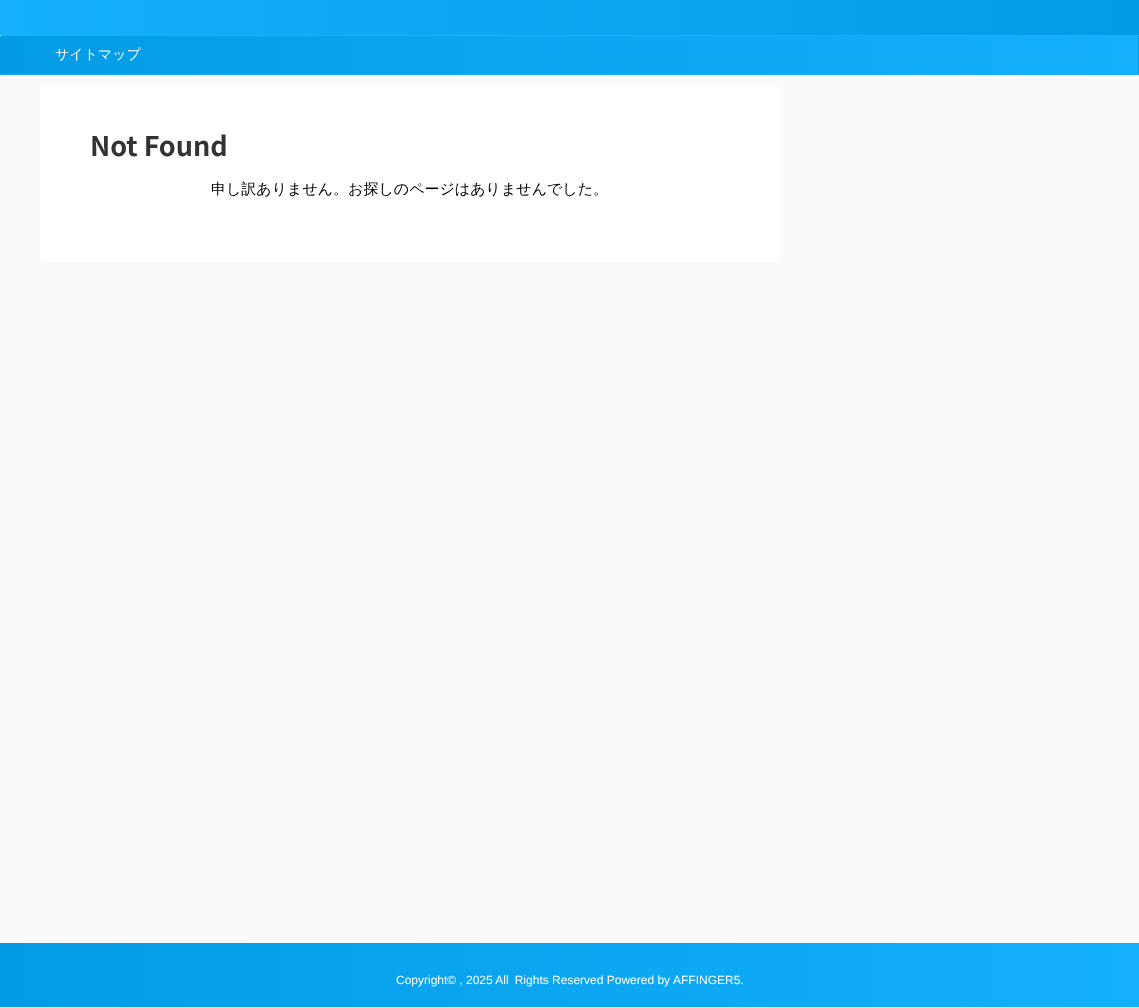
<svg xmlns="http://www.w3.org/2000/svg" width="1139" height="1008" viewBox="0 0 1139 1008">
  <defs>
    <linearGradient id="g1" gradientUnits="userSpaceOnUse" x1="1139" y1="18" x2="0" y2="17"><stop offset="0" stop-color="rgb(3,155,229)"/><stop offset="1" stop-color="rgb(19,176,252)"/></linearGradient>
    <linearGradient id="g2" gradientUnits="userSpaceOnUse" x1="1138" y1="55" x2="1" y2="55"><stop offset="0" stop-color="rgb(19,176,252)"/><stop offset="1" stop-color="rgb(3,155,229)"/></linearGradient>
    <linearGradient id="g3" gradientUnits="userSpaceOnUse" x1="1139" y1="975" x2="0" y2="975"><stop offset="0" stop-color="rgb(19,176,252)"/><stop offset="1" stop-color="rgb(3,155,229)"/></linearGradient>
  </defs>
  <rect width="100%" height="100%" fill="rgb(250,250,250)"/>
  <rect x="0" y="0" width="1139" height="35" fill="url(#g1)"/>
  <rect x="1" y="36" width="1137" height="38" fill="url(#g2)"/>
  <rect x="1" y="35" width="1138" height="1" fill="rgb(19,176,252)"/>
  <rect x="1138" y="36" width="1" height="39" fill="rgb(3,155,229)"/>
  <rect x="1" y="74" width="1138" height="1" fill="rgb(19,176,252)"/>
  <rect x="0" y="36" width="1" height="39" fill="rgb(3,155,229)"/>
  <text x="55" y="59" font-family="WenQuanYi Zen Hei" font-size="14" font-weight="500" fill="rgb(255,255,255)">サイトマップ</text>
  <rect x="40" y="85" width="740" height="177" rx="4" fill="rgb(255,255,255)"/>
  <text x="90" y="156" font-family="Noto Sans JP" font-size="27" font-weight="bold" fill="rgb(51,51,51)">Not Found</text>
  <text x="211" y="194" font-family="WenQuanYi Zen Hei" font-size="15" font-weight="500" fill="rgb(0,0,0)">申し訳ありません。お探しのページはありませんでした。</text>
  <rect x="0" y="943" width="1139" height="64" fill="url(#g3)"/>
  <g font-family="Liberation Sans" font-size="12" fill="rgb(255,255,255)">
    <text x="396" y="984">Copyright© ,</text>
    <text x="466" y="984">2025 All Rights Reserved Powered by</text>
    <text x="673" y="984">AFFINGER5.</text>
  </g>
</svg>
